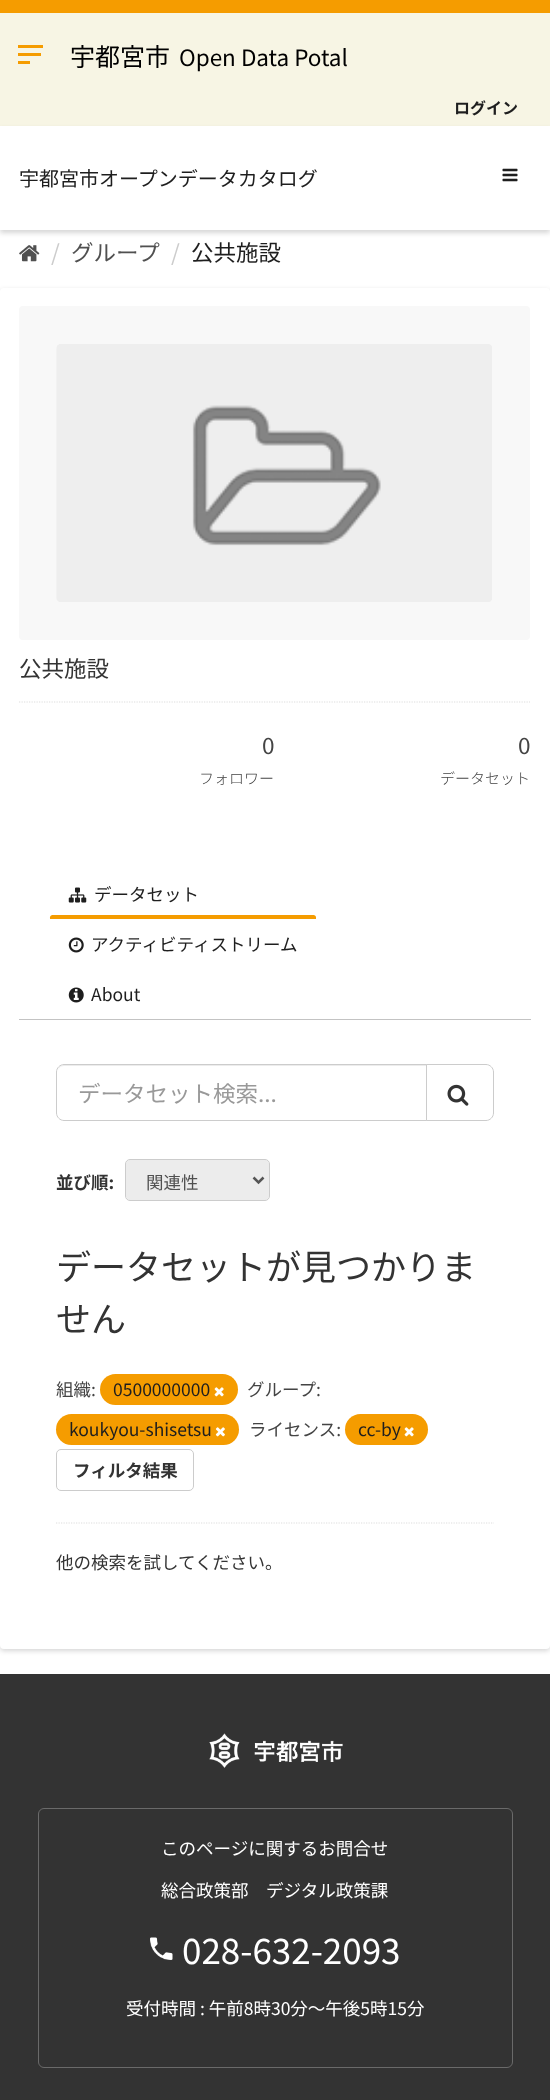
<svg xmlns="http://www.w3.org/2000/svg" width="550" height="2100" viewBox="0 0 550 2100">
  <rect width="100%" height="100%" fill="rgb(255,255,255)"/>
  <rect x="0" y="13" width="550" height="113" fill="rgb(247,245,228)"/>
  <rect x="0" y="0" width="550" height="13" fill="rgb(245,156,0)"/>
  <rect x="18" y="53" width="23" height="3" fill="rgb(245,156,0)"/>
  <rect x="18" y="45" width="25" height="3" fill="rgb(245,156,0)"/>
  <rect x="18" y="61" width="12" height="3" fill="rgb(245,156,0)"/>
  <text x="70" y="66" font-family="Noto Sans JP" font-size="25" fill="rgb(0,0,0)">宇都宮市</text>
  <text x="179" y="66" font-family="Noto Sans JP" font-size="22.5" fill="rgb(0,0,0)">Open Data Potal</text>
  <text x="454" y="114" font-family="Noto Sans JP" font-size="16" font-weight="bold" fill="rgb(30,30,30)">ログイン</text>
  <rect x="0" y="129" width="550" height="104" fill="rgba(0,0,0,0.16)" filter="blur(2.5px)"/>
  <rect x="0" y="126" width="550" height="104" fill="rgb(255,255,255)"/>
  <text x="19" y="186" font-family="Noto Sans JP" font-size="20" fill="rgb(30,30,30)">宇都宮市オープンデータカタログ</text>
  <image x="502" y="168" width="16" height="14" href="pic1.png"/>
  <image x="19" y="245" width="21" height="17" href="pic2.png"/>
  <text x="51" y="261" font-family="Noto Sans JP" font-size="22.5" fill="rgb(204,204,204)">/</text>
  <text x="71" y="261" font-family="Noto Sans JP" font-size="22.5" fill="rgb(80,80,80)">グループ</text>
  <text x="171" y="261" font-family="Noto Sans JP" font-size="22.5" fill="rgb(204,204,204)">/</text>
  <text x="191" y="261" font-family="Noto Sans JP" font-size="22.5" fill="rgb(30,30,30)">公共施設</text>
  <rect x="0" y="290" width="550" height="1361" rx="4" fill="rgba(0,0,0,0.16)" filter="blur(2.5px)"/>
  <rect x="0" y="288" width="550" height="1361" rx="4" fill="rgb(255,255,255)"/>
  <rect x="19" y="306" width="511" height="334" rx="4" fill="rgb(248,248,248)"/>
  <image x="56" y="344" width="436" height="258" href="pic3.png"/>
  <text x="19" y="677" font-family="Noto Sans JP" font-size="22.5" fill="rgb(51,51,51)">公共施設</text>
  <path d="M19 702H530" fill="none" stroke="rgb(221,221,221)" stroke-width="1.2" stroke-dasharray="1.25 1.25"/>
  <text x="262" y="754" font-family="Noto Sans JP" font-size="22.5" fill="rgb(68,68,68)">0</text>
  <text x="199" y="784" font-family="Noto Sans JP" font-size="15" font-weight="300" fill="rgb(68,68,68)">フォロワー</text>
  <text x="518" y="754" font-family="Noto Sans JP" font-size="22.5" fill="rgb(68,68,68)">0</text>
  <text x="440" y="784" font-family="Noto Sans JP" font-size="15" font-weight="300" fill="rgb(68,68,68)">データセット</text>
  <rect x="19" y="1019" width="512" height="1" fill="rgb(195,195,195)"/>
  <image x="68" y="887" width="19" height="16" href="pic4.png"/>
  <text x="94" y="901" font-family="Noto Sans JP" font-size="17.5" fill="rgb(30,30,30)">データセット</text>
  <path d="M52.5 915H313.5C315 915 316 916 316 917.5V919H50V917.5C50 916 51 915 52.5 915Z" fill="rgb(245,156,0)"/>
  <image x="68" y="937" width="16" height="16" href="pic5.png"/>
  <text x="91" y="951" font-family="Noto Sans JP" font-size="17.5" fill="rgb(30,30,30)">アクティビティストリーム</text>
  <image x="68" y="987" width="16" height="16" href="pic6.png"/>
  <text x="91" y="1001" font-family="Noto Sans JP" font-size="17.5" fill="rgb(30,30,30)">About</text>
  <path d="M56 1523H494" fill="none" stroke="rgb(221,221,221)" stroke-width="1.2" stroke-dasharray="1.25 1.25"/>
  <path d="M64 1066H426V1065H64C60 1065 58 1068 58 1072C58 1069 60 1066 64 1066Z" fill="rgb(236,236,236)"/>
  <path d="M64 1064.5H427.5V1120.5H64C60 1120.5 56.5 1117 56.5 1113V1072C56.5 1068 60 1064.5 64 1064.5Z" fill="none" stroke="rgb(204,204,204)"/>
  <text x="78" y="1102" font-family="Noto Sans JP" font-size="22.5" fill="rgb(153,153,153)">データセット検索...</text>
  <path d="M426.5 1064.5H486C490 1064.5 493.5 1068 493.5 1072V1113C493.5 1117 490 1120.5 486 1120.5H426.5Z" fill="rgb(255,255,255)" stroke="rgb(204,204,204)"/>
  <image x="447" y="1084" width="22" height="22" href="pic7.png"/>
  <text x="56" y="1189" font-family="Noto Sans JP" font-size="17.5" font-weight="bold" fill="rgb(51,51,51)">並び順:</text>
  <path d="M130 1160C128 1160 126 1162 126 1164V1196C126 1198 128 1200 130 1200H265C267 1200 269 1198 269 1196V1164C269 1162 267 1160 265 1160Z" fill="rgb(236,236,236)"/>
  <rect x="125.5" y="1159.5" width="144" height="41" rx="4.5" fill="none" stroke="rgb(204,204,204)"/>
  <path d="M253.5 1177.5L258.5 1182.5L263.5 1177.5" fill="none" stroke="rgb(85,85,85)" stroke-width="2.5"/>
  <text x="146" y="1189" font-family="Noto Sans JP" font-size="17.5" fill="rgb(80,80,80)">関連性</text>
  <g font-family="Noto Sans JP" font-size="35" fill="rgb(51,51,51)">
    <text>
      <tspan x="56" y="1280">データセットが見つかりま</tspan>
      <tspan x="56" y="1332">せん</tspan>
    </text>
  </g>
  <text x="56" y="1396" font-family="Noto Sans JP" font-size="17.5" fill="rgb(68,68,68)">組織:</text>
  <rect x="100" y="1374" width="138" height="31" rx="15.5" fill="rgb(245,156,0)"/>
  <text x="113" y="1396" font-family="Noto Sans JP" font-size="17.5" fill="rgb(30,30,30)">0500000000</text>
  <image x="214" y="1387" width="10" height="10" href="pic8.png"/>
  <text x="247" y="1396" font-family="Noto Sans JP" font-size="17.5" fill="rgb(68,68,68)">グループ:</text>
  <rect x="56" y="1414" width="183" height="31" rx="15.5" fill="rgb(245,156,0)"/>
  <text x="69" y="1436" font-family="Noto Sans JP" font-size="17.5" fill="rgb(30,30,30)">koukyou-shisetsu</text>
  <image x="215" y="1427" width="10" height="10" href="pic9.png"/>
  <text x="249" y="1436" font-family="Noto Sans JP" font-size="17.5" fill="rgb(68,68,68)">ライセンス:</text>
  <rect x="345" y="1414" width="83" height="31" rx="15.5" fill="rgb(245,156,0)"/>
  <text x="358" y="1436" font-family="Noto Sans JP" font-size="17.5" fill="rgb(30,30,30)">cc-by</text>
  <image x="404" y="1427" width="10" height="10" href="pic8.png"/>
  <rect x="56.5" y="1449.5" width="137" height="41" rx="4.5" fill="none" stroke="rgb(204,204,204)"/>
  <text x="73" y="1477" font-family="Noto Sans JP" font-size="17.5" font-weight="bold" fill="rgb(51,51,51)">フィルタ結果</text>
  <text x="56" y="1569" font-family="Noto Sans JP" font-size="17.5" fill="rgb(51,51,51)">他の検索を試してください。</text>
  <rect x="0" y="1674" width="550" height="426" fill="rgb(51,51,51)"/>
  <image x="209" y="1733" width="134" height="35" href="pic10.png"/>
  <rect x="38.5" y="1808.5" width="474" height="259" rx="5.5" fill="none" stroke="rgb(106,106,106)"/>
  <g font-family="Noto Sans JP" font-size="17.5" fill="rgb(255,255,255)">
    <text x="161" y="1855">このページに関するお問合せ</text>
    <text x="161" y="1897">総合政策部　デジタル政策課</text>
  </g>
  <image x="150" y="1937" width="23" height="23" href="pic11.png"/>
  <text x="182" y="1964" font-family="Noto Sans JP" font-size="35" fill="rgb(255,255,255)">028-632-2093</text>
  <text x="126" y="2015" font-family="Noto Sans JP" font-size="17.5" fill="rgb(255,255,255)">受付時間 : 午前8時30分～午後5時15分</text>
</svg>
